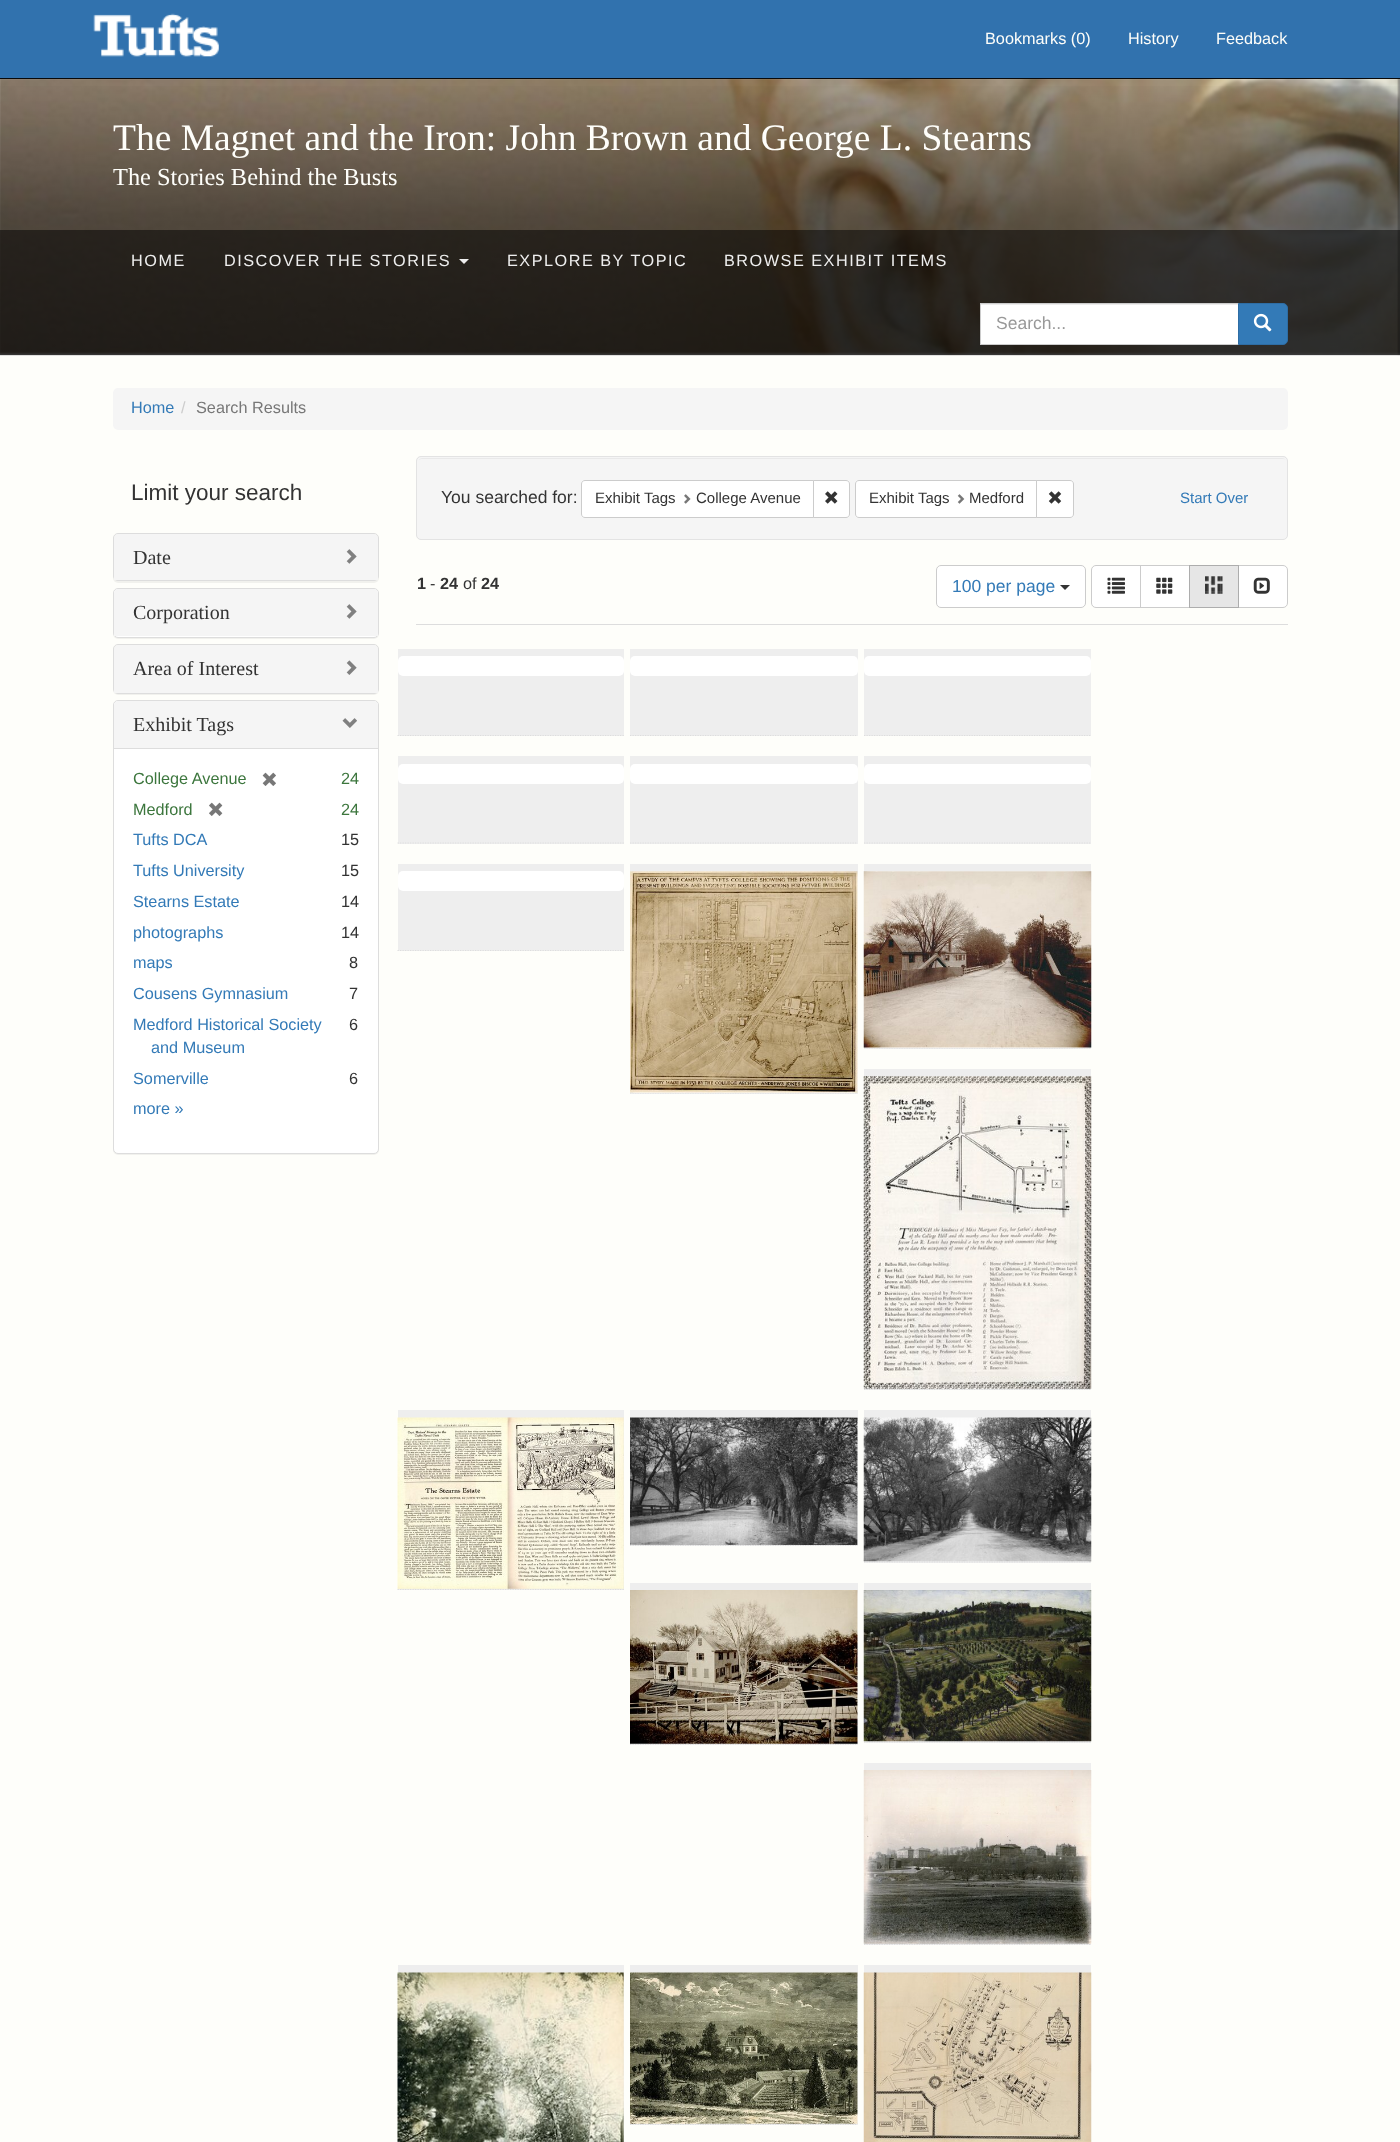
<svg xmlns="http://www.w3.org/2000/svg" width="1400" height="2142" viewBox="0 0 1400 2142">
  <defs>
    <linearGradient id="g1" gradientUnits="userSpaceOnUse" x1="700" y1="79" x2="700" y2="355"><stop offset="0" stop-color="rgb(0,0,0)" stop-opacity="0"/><stop offset="0.5" stop-color="rgb(0,0,0)" stop-opacity="0.4"/><stop offset="1" stop-color="rgb(0,0,0)" stop-opacity="0.5"/></linearGradient>
  </defs>
  <rect width="100%" height="100%" fill="rgb(254,254,250)"/>
  <rect x="0" y="79" width="1400" height="276" fill="rgb(245,245,245)"/>
  <rect x="0" y="355" width="1400" height="1" fill="rgb(231,231,231)"/>
  <image x="0" y="79" width="1400" height="277" href="pic2.png"/>
  <rect x="1399" y="78" width="1" height="276" fill="rgb(0,0,0)" filter="blur(1px)"/>
  <rect x="0" y="0" width="1400" height="78" fill="rgb(49,114,174)"/>
  <rect x="0" y="78" width="1400" height="1" fill="rgb(9,9,9)"/>
  <image x="93" y="13" width="126" height="44" href="pic1.png"/>
  <g font-family="Liberation Sans" font-size="16.25" fill="rgb(254,254,250)">
    <text x="985" y="44">Bookmarks (0)</text>
    <text x="1128" y="44">History</text>
    <text x="1216" y="44">Feedback</text>
  </g>
  <rect x="0" y="86" width="1400" height="269" fill="url(#g1)"/>
  <text x="113" y="150" font-family="Liberation Serif" font-size="37.5" fill="rgb(254,254,250)">The Magnet and the Iron: John Brown and George L. Stearns</text>
  <text x="113" y="185" font-family="Liberation Serif" font-size="24.4" fill="rgb(254,254,250)">The Stories Behind the Busts</text>
  <rect x="0" y="230" width="1400" height="125" fill="rgba(0,0,0,0.5)"/>
  <g font-family="Liberation Sans" font-size="16.25" letter-spacing="1.5" fill="rgb(238,238,238)">
    <text x="131" y="266">HOME</text>
    <text x="224" y="266">DISCOVER THE STORIES</text>
  </g>
  <path d="M459 259H469L464 264Z" fill="rgb(238,238,238)"/>
  <g font-family="Liberation Sans" font-size="16.25" letter-spacing="1.5" fill="rgb(238,238,238)">
    <text x="507" y="266">EXPLORE BY TOPIC</text>
    <text x="724" y="266">BROWSE EXHIBIT ITEMS</text>
  </g>
  <rect x="981" y="305" width="257" height="39" fill="rgb(255,255,255)"/>
  <rect x="981" y="304" width="257" height="1" fill="rgb(236,236,236)"/>
  <rect x="980.5" y="303.5" width="258" height="41" fill="none" stroke="rgb(204,204,204)"/>
  <text x="996" y="329" font-family="Liberation Sans" font-size="17.5" fill="rgb(153,153,153)">Search...</text>
  <path d="M1238.5 303.5H1283C1285.5 303.5 1287.5 305.5 1287.5 308V340C1287.5 342.5 1285.5 344.5 1283 344.5H1238.5Z" fill="rgb(51,122,183)" stroke="rgb(46,109,164)"/>
  <image x="1253" y="313" width="19" height="19" href="pic3.png"/>
  <rect x="113" y="388" width="1175" height="42" rx="5" fill="rgb(245,245,245)"/>
  <text x="131" y="413" font-family="Liberation Sans" font-size="16.25" fill="rgb(51,122,183)">Home</text>
  <text x="181" y="413" font-family="Liberation Sans" font-size="16.25" fill="rgb(204,204,204)">/</text>
  <text x="196" y="413" font-family="Liberation Sans" font-size="16.25" fill="rgb(119,119,119)">Search Results</text>
  <text x="131" y="500" font-family="Liberation Sans" font-size="22.5" fill="rgb(51,51,51)">Limit your search</text>
  <rect x="113" y="534" width="266" height="49" rx="5" fill="rgba(0,0,0,0.05)" filter="blur(0.5px)"/>
  <rect x="113.5" y="533.5" width="265" height="47" rx="4.5" fill="none" stroke="rgb(221,221,221)"/>
  <path d="M118 534H374C376 534 378 536 378 538V580H114V538C114 536 116 534 118 534Z" fill="rgb(245,245,245)"/>
  <text x="133" y="564" font-family="Liberation Serif" font-size="20" fill="rgb(51,51,51)">Date</text>
  <image x="346" y="549" width="11" height="15" href="pic4.png"/>
  <rect x="113" y="589" width="266" height="50" rx="5" fill="rgba(0,0,0,0.05)" filter="blur(0.5px)"/>
  <rect x="113.5" y="588.5" width="265" height="49" rx="4.5" fill="rgb(255,255,255)" stroke="rgb(221,221,221)"/>
  <path d="M118 589H374C376 589 378 591 378 593V636H114V593C114 591 116 589 118 589Z" fill="rgb(245,245,245)"/>
  <text x="133" y="619" font-family="Liberation Serif" font-size="20" fill="rgb(51,51,51)">Corporation</text>
  <image x="346" y="604" width="11" height="15" href="pic4.png"/>
  <rect x="113" y="645" width="266" height="50" rx="5" fill="rgba(0,0,0,0.05)" filter="blur(0.5px)"/>
  <rect x="113.5" y="644.5" width="265" height="49" rx="4.5" fill="none" stroke="rgb(221,221,221)"/>
  <path d="M118 645H374C376 645 378 647 378 649V693H114V649C114 647 116 645 118 645Z" fill="rgb(245,245,245)"/>
  <text x="133" y="675" font-family="Liberation Serif" font-size="20" fill="rgb(51,51,51)">Area of Interest</text>
  <image x="346" y="660" width="11" height="15" href="pic5.png"/>
  <rect x="113" y="701" width="266" height="454" rx="5" fill="rgba(0,0,0,0.05)" filter="blur(0.5px)"/>
  <rect x="113.5" y="700.5" width="265" height="453" rx="4.5" fill="rgb(255,255,255)" stroke="rgb(221,221,221)"/>
  <path d="M118 701H374C376 701 378 703 378 705V748H114V705C114 703 116 701 118 701Z" fill="rgb(245,245,245)"/>
  <text x="133" y="731" font-family="Liberation Serif" font-size="20" fill="rgb(51,51,51)">Exhibit Tags</text>
  <image x="342" y="718" width="15" height="10" href="pic6.png"/>
  <rect x="114" y="748" width="264" height="1" fill="rgb(221,221,221)"/>
  <text x="133" y="784" font-family="Liberation Sans" font-size="16.25" fill="rgb(60,118,61)">College Avenue</text>
  <image x="262" y="772" width="14" height="14" href="pic7.png"/>
  <g font-family="Liberation Sans" font-size="16.25" fill="rgb(60,118,61)">
    <text x="341" y="784">24</text>
    <text x="133" y="815">Medford</text>
  </g>
  <image x="209" y="802" width="14" height="14" href="pic8.png"/>
  <text x="341" y="815" font-family="Liberation Sans" font-size="16.25" fill="rgb(60,118,61)">24</text>
  <text x="133" y="845" font-family="Liberation Sans" font-size="16.25" fill="rgb(51,122,183)">Tufts DCA</text>
  <text x="341" y="845" font-family="Liberation Sans" font-size="16.25" fill="rgb(51,51,51)">15</text>
  <text x="133" y="876" font-family="Liberation Sans" font-size="16.25" fill="rgb(51,122,183)">Tufts University</text>
  <text x="341" y="876" font-family="Liberation Sans" font-size="16.25" fill="rgb(51,51,51)">15</text>
  <text x="133" y="907" font-family="Liberation Sans" font-size="16.25" fill="rgb(51,122,183)">Stearns Estate</text>
  <text x="341" y="907" font-family="Liberation Sans" font-size="16.25" fill="rgb(51,51,51)">14</text>
  <text x="133" y="938" font-family="Liberation Sans" font-size="16.25" fill="rgb(51,122,183)">photographs</text>
  <text x="341" y="938" font-family="Liberation Sans" font-size="16.25" fill="rgb(51,51,51)">14</text>
  <text x="133" y="968" font-family="Liberation Sans" font-size="16.25" fill="rgb(51,122,183)">maps</text>
  <text x="349" y="968" font-family="Liberation Sans" font-size="16.25" fill="rgb(51,51,51)">8</text>
  <text x="133" y="999" font-family="Liberation Sans" font-size="16.25" fill="rgb(51,122,183)">Cousens Gymnasium</text>
  <text x="349" y="999" font-family="Liberation Sans" font-size="16.25" fill="rgb(51,51,51)">7</text>
  <g font-family="Liberation Sans" font-size="16.25" fill="rgb(51,122,183)">
    <text x="133" y="1030">Medford Historical Society</text>
    <text x="151" y="1053">and Museum</text>
  </g>
  <text x="349" y="1030" font-family="Liberation Sans" font-size="16.25" fill="rgb(51,51,51)">6</text>
  <text x="133" y="1084" font-family="Liberation Sans" font-size="16.25" fill="rgb(51,122,183)">Somerville</text>
  <text x="349" y="1084" font-family="Liberation Sans" font-size="16.25" fill="rgb(51,51,51)">6</text>
  <text x="133" y="1114" font-family="Liberation Sans" font-size="16.25" fill="rgb(51,122,183)">more »</text>
  <rect x="416" y="456" width="872" height="84" rx="5" fill="rgb(245,245,245)"/>
  <path d="M421 459H1282C1284 459 1285 459 1286 460C1285 459 1284 458 1282 458H422C421 458 419 459 419 460Z" fill="rgb(233,233,233)"/>
  <rect x="416.5" y="456.5" width="871" height="83" rx="4.5" fill="none" stroke="rgb(227,227,227)"/>
  <text x="441" y="503" font-family="Liberation Sans" font-size="17.5" fill="rgb(51,51,51)">You searched for:</text>
  <path d="M585 480.5H813.5V517.5H585C583 517.5 581.5 516 581.5 514V484C581.5 482 583 480.5 585 480.5Z" fill="rgb(255,255,255)" stroke="rgb(204,204,204)"/>
  <text x="595" y="503" font-family="Liberation Sans" font-size="15" fill="rgb(51,51,51)">Exhibit Tags</text>
  <image x="684" y="494" width="7" height="10" href="pic9.png"/>
  <text x="696" y="503" font-family="Liberation Sans" font-size="15" fill="rgb(51,51,51)">College Avenue</text>
  <path d="M813.5 480.5H846C848 480.5 849.5 482 849.5 484V514C849.5 516 848 517.5 846 517.5H813.5Z" fill="rgb(255,255,255)" stroke="rgb(204,204,204)"/>
  <image x="825" y="491" width="13" height="13" href="pic10.png"/>
  <path d="M859 480.5H1037.5V517.5H859C857 517.5 855.5 516 855.5 514V484C855.5 482 857 480.5 859 480.5Z" fill="rgb(255,255,255)" stroke="rgb(204,204,204)"/>
  <text x="869" y="503" font-family="Liberation Sans" font-size="15" fill="rgb(51,51,51)">Exhibit Tags</text>
  <image x="957" y="494" width="8" height="10" href="pic11.png"/>
  <text x="969" y="503" font-family="Liberation Sans" font-size="15" fill="rgb(51,51,51)">Medford</text>
  <path d="M1036.5 480.5H1070C1072 480.5 1073.5 482 1073.5 484V514C1073.5 516 1072 517.5 1070 517.5H1036.5Z" fill="rgb(255,255,255)" stroke="rgb(204,204,204)"/>
  <image x="1048" y="491" width="14" height="13" href="pic12.png"/>
  <text x="1180" y="503" font-family="Liberation Sans" font-size="15" fill="rgb(51,122,183)">Start Over</text>
  <rect x="416" y="624" width="872" height="1" fill="rgb(221,221,221)"/>
  <text x="417" y="589" font-family="Liberation Sans" font-size="16.25" font-weight="bold" fill="rgb(51,51,51)">1</text>
  <text x="430" y="589" font-family="Liberation Sans" font-size="16.25" fill="rgb(51,51,51)">-</text>
  <text x="440" y="589" font-family="Liberation Sans" font-size="16.25" font-weight="bold" fill="rgb(51,51,51)">24</text>
  <text x="463" y="589" font-family="Liberation Sans" font-size="16.25" fill="rgb(51,51,51)">of</text>
  <text x="481" y="589" font-family="Liberation Sans" font-size="16.25" font-weight="bold" fill="rgb(51,51,51)">24</text>
  <rect x="936.5" y="565.5" width="149" height="42" rx="4.5" fill="rgb(255,255,255)" stroke="rgb(204,204,204)"/>
  <text x="952" y="592" font-family="Liberation Sans" font-size="17.5" fill="rgb(51,122,183)">100 per page</text>
  <path d="M1060 585H1070L1065 590Z" fill="rgb(51,51,51)"/>
  <path d="M1096 565.5H1140.5V607.5H1096C1093.5 607.5 1091.5 605.5 1091.5 603V570C1091.5 567.5 1093.5 565.5 1096 565.5Z" fill="rgb(255,255,255)" stroke="rgb(204,204,204)"/>
  <image x="1107" y="577" width="18" height="17" href="pic13.png"/>
  <rect x="1140.5" y="565.5" width="49" height="42" fill="rgb(255,255,255)" stroke="rgb(204,204,204)"/>
  <image x="1156" y="577" width="17" height="17" href="pic14.png"/>
  <path d="M1238.5 565.5H1283C1285.5 565.5 1287.5 567.5 1287.5 570V603C1287.5 605.5 1285.5 607.5 1283 607.5H1238.5Z" fill="rgb(255,255,255)" stroke="rgb(204,204,204)"/>
  <rect x="1189.5" y="565.5" width="49" height="42" fill="rgb(230,230,230)" stroke="rgb(173,173,173)"/>
  <image x="1205" y="576" width="18" height="18" href="pic15.png"/>
  <image x="1253" y="577" width="17" height="17" href="pic16.png"/>
  <rect x="398" y="649" width="226" height="87" fill="rgb(238,238,238)"/>
  <path d="M397.5 735.5H624" fill="none" stroke="rgb(221,221,221)" stroke-width="1.2" stroke-dasharray="1.25 1.25"/>
  <rect x="398" y="656" width="226" height="20" rx="5" fill="rgb(255,255,255)"/>
  <rect x="630" y="649" width="228" height="87" fill="rgb(238,238,238)"/>
  <path d="M630 735.5H857.5" fill="none" stroke="rgb(221,221,221)" stroke-width="1.2" stroke-dasharray="1.25 1.25"/>
  <rect x="630" y="656" width="228" height="20" rx="5" fill="rgb(255,255,255)"/>
  <rect x="864" y="649" width="227" height="87" fill="rgb(238,238,238)"/>
  <path d="M864 735.5H1091" fill="none" stroke="rgb(221,221,221)" stroke-width="1.2" stroke-dasharray="1.25 1.25"/>
  <rect x="864" y="656" width="227" height="20" rx="5" fill="rgb(255,255,255)"/>
  <rect x="398" y="756" width="226" height="88" fill="rgb(238,238,238)"/>
  <path d="M397.5 843H624" fill="none" stroke="rgb(221,221,221)" stroke-width="1.2" stroke-dasharray="1.25 1.25"/>
  <rect x="398" y="764" width="226" height="20" rx="5" fill="rgb(255,255,255)"/>
  <rect x="630" y="756" width="228" height="88" fill="rgb(238,238,238)"/>
  <path d="M630 843H857.5" fill="none" stroke="rgb(221,221,221)" stroke-width="1.2" stroke-dasharray="1.25 1.25"/>
  <rect x="630" y="764" width="228" height="20" rx="5" fill="rgb(255,255,255)"/>
  <rect x="864" y="756" width="227" height="88" fill="rgb(238,238,238)"/>
  <path d="M864 843H1091" fill="none" stroke="rgb(221,221,221)" stroke-width="1.2" stroke-dasharray="1.25 1.25"/>
  <rect x="864" y="764" width="227" height="20" rx="5" fill="rgb(255,255,255)"/>
  <rect x="398" y="864" width="226" height="87" fill="rgb(238,238,238)"/>
  <path d="M397.5 950.5H624" fill="none" stroke="rgb(221,221,221)" stroke-width="1.2" stroke-dasharray="1.25 1.25"/>
  <rect x="398" y="871" width="226" height="20" rx="5" fill="rgb(255,255,255)"/>
  <rect x="630" y="864" width="228" height="230" fill="rgb(238,238,238)"/>
  <path d="M630 1093H857.5" fill="none" stroke="rgb(221,221,221)" stroke-width="1.2" stroke-dasharray="1.25 1.25"/>
  <rect x="630" y="871" width="228" height="222" rx="5" fill="rgb(255,255,255)"/>
  <image x="630" y="871" width="228" height="222" href="pic17.png"/>
  <rect x="864" y="864" width="227" height="185" fill="rgb(238,238,238)"/>
  <path d="M864 1048H1091" fill="none" stroke="rgb(221,221,221)" stroke-width="1.2" stroke-dasharray="1.25 1.25"/>
  <rect x="864" y="871" width="227" height="177" rx="5" fill="rgb(255,255,255)"/>
  <image x="863" y="871" width="229" height="177" href="pic18.png"/>
  <rect x="864" y="1069" width="227" height="321" fill="rgb(238,238,238)"/>
  <path d="M864 1389.5H1091" fill="none" stroke="rgb(221,221,221)" stroke-width="1.2" stroke-dasharray="1.25 1.25"/>
  <image x="863" y="1076" width="229" height="313" href="pic19.png"/>
  <rect x="398" y="1410" width="226" height="180" fill="rgb(238,238,238)"/>
  <path d="M397.5 1589.5H624" fill="none" stroke="rgb(221,221,221)" stroke-width="1.2" stroke-dasharray="1.25 1.25"/>
  <image x="397" y="1417" width="227" height="172" href="pic20.png"/>
  <rect x="630" y="1410" width="228" height="136" fill="rgb(238,238,238)"/>
  <path d="M630 1545.5H857.5" fill="none" stroke="rgb(221,221,221)" stroke-width="1.2" stroke-dasharray="1.25 1.25"/>
  <rect x="630" y="1418" width="228" height="127" rx="5" fill="rgb(255,255,255)"/>
  <image x="630" y="1417" width="228" height="128" href="pic21.png"/>
  <rect x="864" y="1410" width="227" height="153" fill="rgb(238,238,238)"/>
  <path d="M864 1562H1091" fill="none" stroke="rgb(221,221,221)" stroke-width="1.2" stroke-dasharray="1.25 1.25"/>
  <image x="863" y="1417" width="229" height="145" href="pic22.png"/>
  <rect x="630" y="1583" width="228" height="162" fill="rgb(238,238,238)"/>
  <path d="M630 1744.5H857.5" fill="none" stroke="rgb(221,221,221)" stroke-width="1.2" stroke-dasharray="1.25 1.25"/>
  <rect x="630" y="1590" width="228" height="154" rx="5" fill="rgb(255,255,255)"/>
  <image x="630" y="1590" width="228" height="154" href="pic23.png"/>
  <rect x="864" y="1583" width="227" height="160" fill="rgb(238,238,238)"/>
  <path d="M864 1742H1091" fill="none" stroke="rgb(221,221,221)" stroke-width="1.2" stroke-dasharray="1.25 1.25"/>
  <image x="863" y="1590" width="229" height="152" href="pic24.png"/>
  <rect x="864" y="1763" width="227" height="182" fill="rgb(238,238,238)"/>
  <path d="M864 1944.5H1091" fill="none" stroke="rgb(221,221,221)" stroke-width="1.2" stroke-dasharray="1.25 1.25"/>
  <image x="863" y="1770" width="229" height="174" href="pic25.png"/>
  <rect x="398" y="1965" width="226" height="177" fill="rgb(238,238,238)"/>
  <image x="397" y="1972" width="227" height="170" href="pic26.png"/>
  <rect x="630" y="1965" width="228" height="160" fill="rgb(238,238,238)"/>
  <path d="M630 2124.5H857.5" fill="none" stroke="rgb(221,221,221)" stroke-width="1.2" stroke-dasharray="1.25 1.25"/>
  <rect x="630" y="1973" width="228" height="151" rx="5" fill="rgb(255,255,255)"/>
  <image x="630" y="1972" width="228" height="152" href="pic27.png"/>
  <rect x="864" y="1965" width="227" height="8" fill="rgb(238,238,238)"/>
  <image x="863" y="1972" width="229" height="170" href="pic28.png"/>
</svg>
